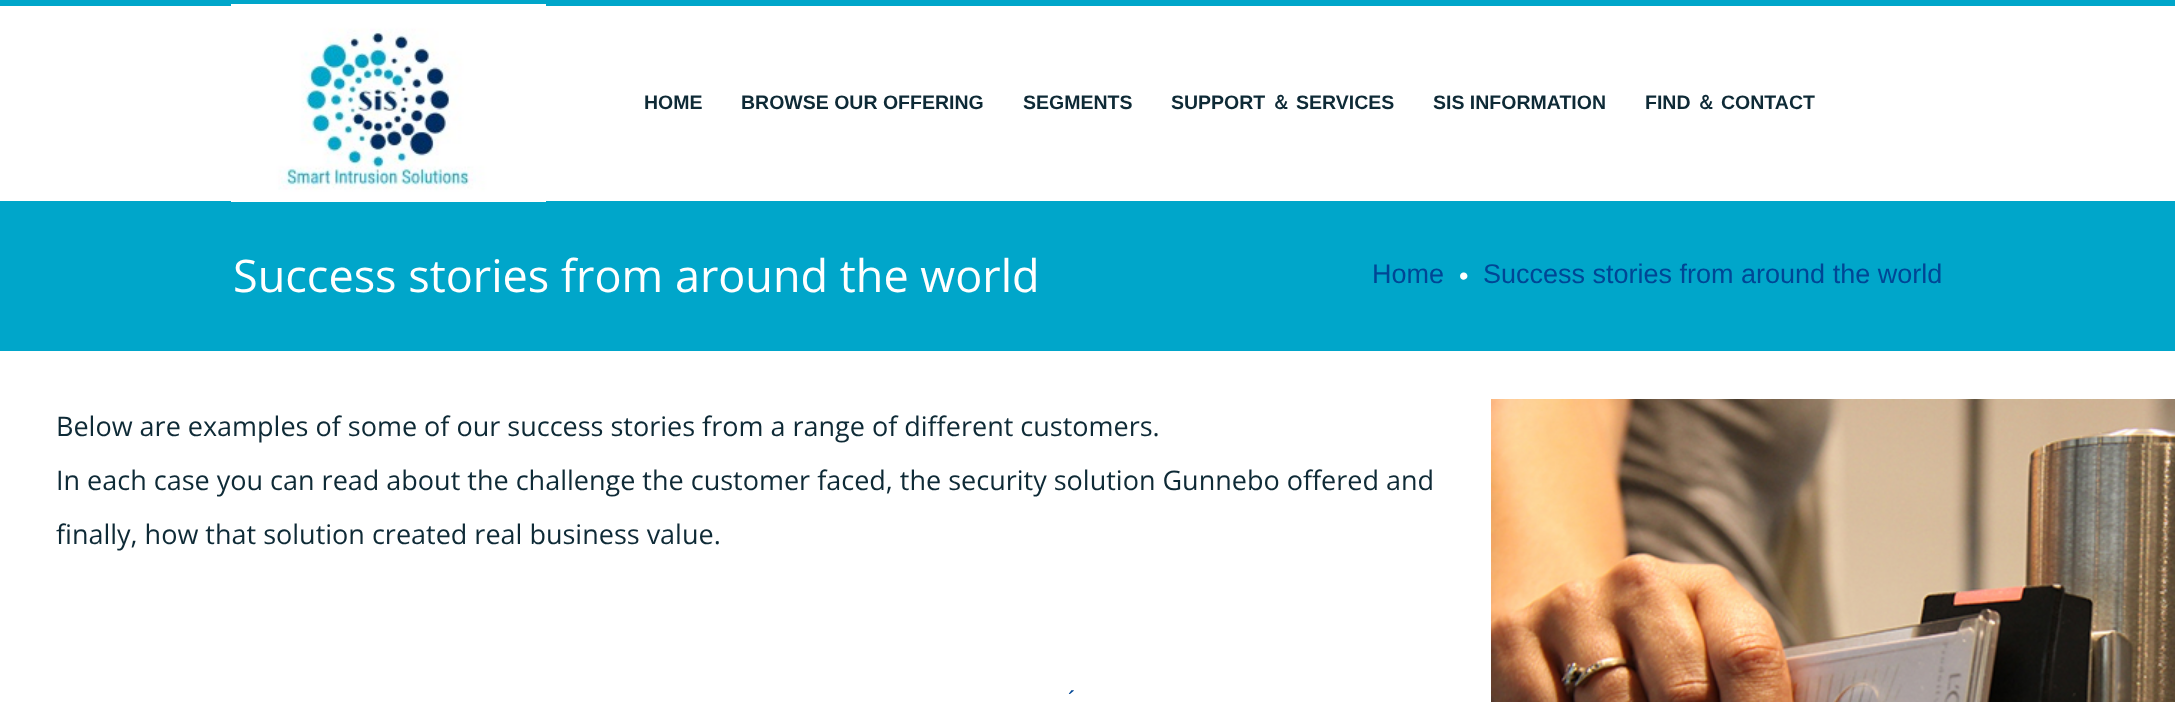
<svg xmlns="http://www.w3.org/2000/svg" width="2175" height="702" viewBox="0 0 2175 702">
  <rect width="100%" height="100%" fill="rgb(255,255,255)"/>
  <rect x="0" y="0" width="2175" height="6" fill="rgb(0,166,202)"/>
  <rect x="0" y="201" width="2175" height="150" fill="rgb(0,166,202)"/>
  <image x="231" y="4" width="315" height="198" href="pic1.png"/>
  <g font-family="Liberation Sans" font-size="19.5" font-weight="bold" fill="rgb(14,42,54)">
    <text x="644" y="109">HOME</text>
    <text x="741" y="109">BROWSE OUR OFFERING</text>
    <text x="1023" y="109">SEGMENTS</text>
    <text x="1171" y="109">SUPPORT</text>
  </g>
  <text x="1271" y="109" font-family="WenQuanYi Zen Hei" font-size="19.5" font-weight="bold" fill="rgb(14,42,54)">＆</text>
  <g font-family="Liberation Sans" font-size="19.5" font-weight="bold" fill="rgb(14,42,54)">
    <text x="1296" y="109">SERVICES</text>
    <text x="1433" y="109">SIS INFORMATION</text>
    <text x="1645" y="109">FIND</text>
  </g>
  <text x="1696" y="109" font-family="WenQuanYi Zen Hei" font-size="19.5" font-weight="bold" fill="rgb(14,42,54)">＆</text>
  <text x="1721" y="109" font-family="Liberation Sans" font-size="19.5" font-weight="bold" fill="rgb(14,42,54)">CONTACT</text>
  <text x="233" y="292" font-family="Open Sans" font-size="45" fill="rgb(255,255,255)">Success stories from around the world</text>
  <text x="1372" y="283" font-family="Liberation Sans" font-size="27" fill="rgb(0,70,149)">Home</text>
  <text x="1459" y="285" font-family="Liberation Sans" font-size="27" fill="rgb(255,255,255)">•</text>
  <text x="1483" y="283" font-family="Liberation Sans" font-size="27" fill="rgb(0,70,149)">Success stories from around the world</text>
  <g font-family="Open Sans" font-size="27" fill="rgb(14,42,54)">
    <text x="56" y="436">Below are examples of some of our success stories from a range of different customers.</text>
    <text x="56" y="490">In each case you can read about the challenge the customer faced, the security solution Gunnebo offered and</text>
    <text x="56" y="544">finally, how that solution created real business value.</text>
  </g>
  <text x="1068" y="708" font-family="Liberation Sans" font-size="24" fill="rgb(0,70,149)">´</text>
  <image x="1491" y="399" width="684" height="303" href="pic2.png"/>
</svg>
